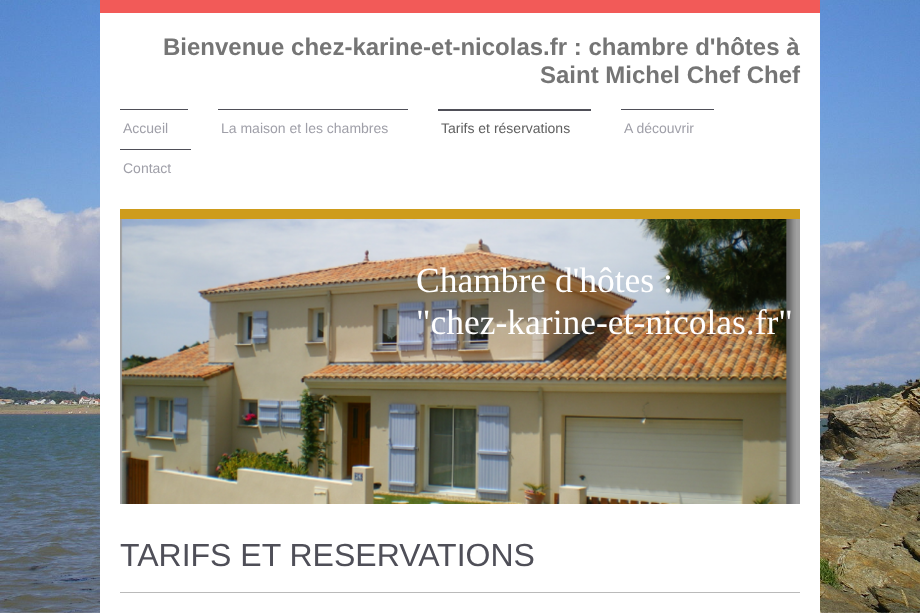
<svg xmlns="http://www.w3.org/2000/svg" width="920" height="613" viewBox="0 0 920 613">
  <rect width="100%" height="100%" fill="rgb(255,255,255)"/>
  <image x="0" y="0" width="920" height="613" href="pic1.png"/>
  <rect x="100" y="13" width="720" height="600" fill="rgb(255,255,255)"/>
  <rect x="100" y="0" width="720" height="13" fill="rgb(242,90,88)"/>
  <g font-family="Liberation Sans" font-size="24" font-weight="bold" fill="rgb(117,117,117)">
    <text x="163" y="55">Bienvenue chez-karine-et-nicolas.fr : chambre d'hôtes à</text>
    <text x="540" y="83">Saint Michel Chef Chef</text>
  </g>
  <rect x="120" y="109" width="68" height="1" fill="rgb(79,79,88)"/>
  <text x="123" y="133" font-family="Liberation Sans" font-size="14" fill="rgb(159,159,168)">Accueil</text>
  <rect x="218" y="109" width="190" height="1" fill="rgb(79,79,88)"/>
  <text x="221" y="133" font-family="Liberation Sans" font-size="14" fill="rgb(159,159,168)">La maison et les chambres</text>
  <rect x="438" y="109" width="153" height="2" fill="rgb(79,79,88)"/>
  <text x="441" y="133" font-family="Liberation Sans" font-size="14" fill="rgb(94,94,94)">Tarifs et réservations</text>
  <rect x="621" y="109" width="93" height="1" fill="rgb(79,79,88)"/>
  <text x="624" y="133" font-family="Liberation Sans" font-size="14" fill="rgb(159,159,168)">A découvrir</text>
  <rect x="120" y="149" width="71" height="1" fill="rgb(79,79,88)"/>
  <text x="123" y="173" font-family="Liberation Sans" font-size="14" fill="rgb(159,159,168)">Contact</text>
  <rect x="120" y="209" width="680" height="10" fill="rgb(206,156,28)"/>
  <rect x="120" y="219" width="680" height="285" fill="rgb(160,160,160)"/>
  <image x="121" y="219" width="675" height="285" href="pic2.png"/>
  <g font-family="Liberation Serif" font-size="35.5" fill="rgb(255,255,255)">
    <text>
      <tspan x="416" y="292">Chambre d'hôtes :</tspan>
      <tspan x="416" y="334">"chez-karine-et-nicolas.fr"</tspan>
    </text>
  </g>
  <text x="120" y="566" font-family="Liberation Sans" font-size="32" fill="rgb(79,79,88)">TARIFS ET RESERVATIONS</text>
  <rect x="120" y="592" width="680" height="1" fill="rgb(186,186,186)"/>
</svg>
